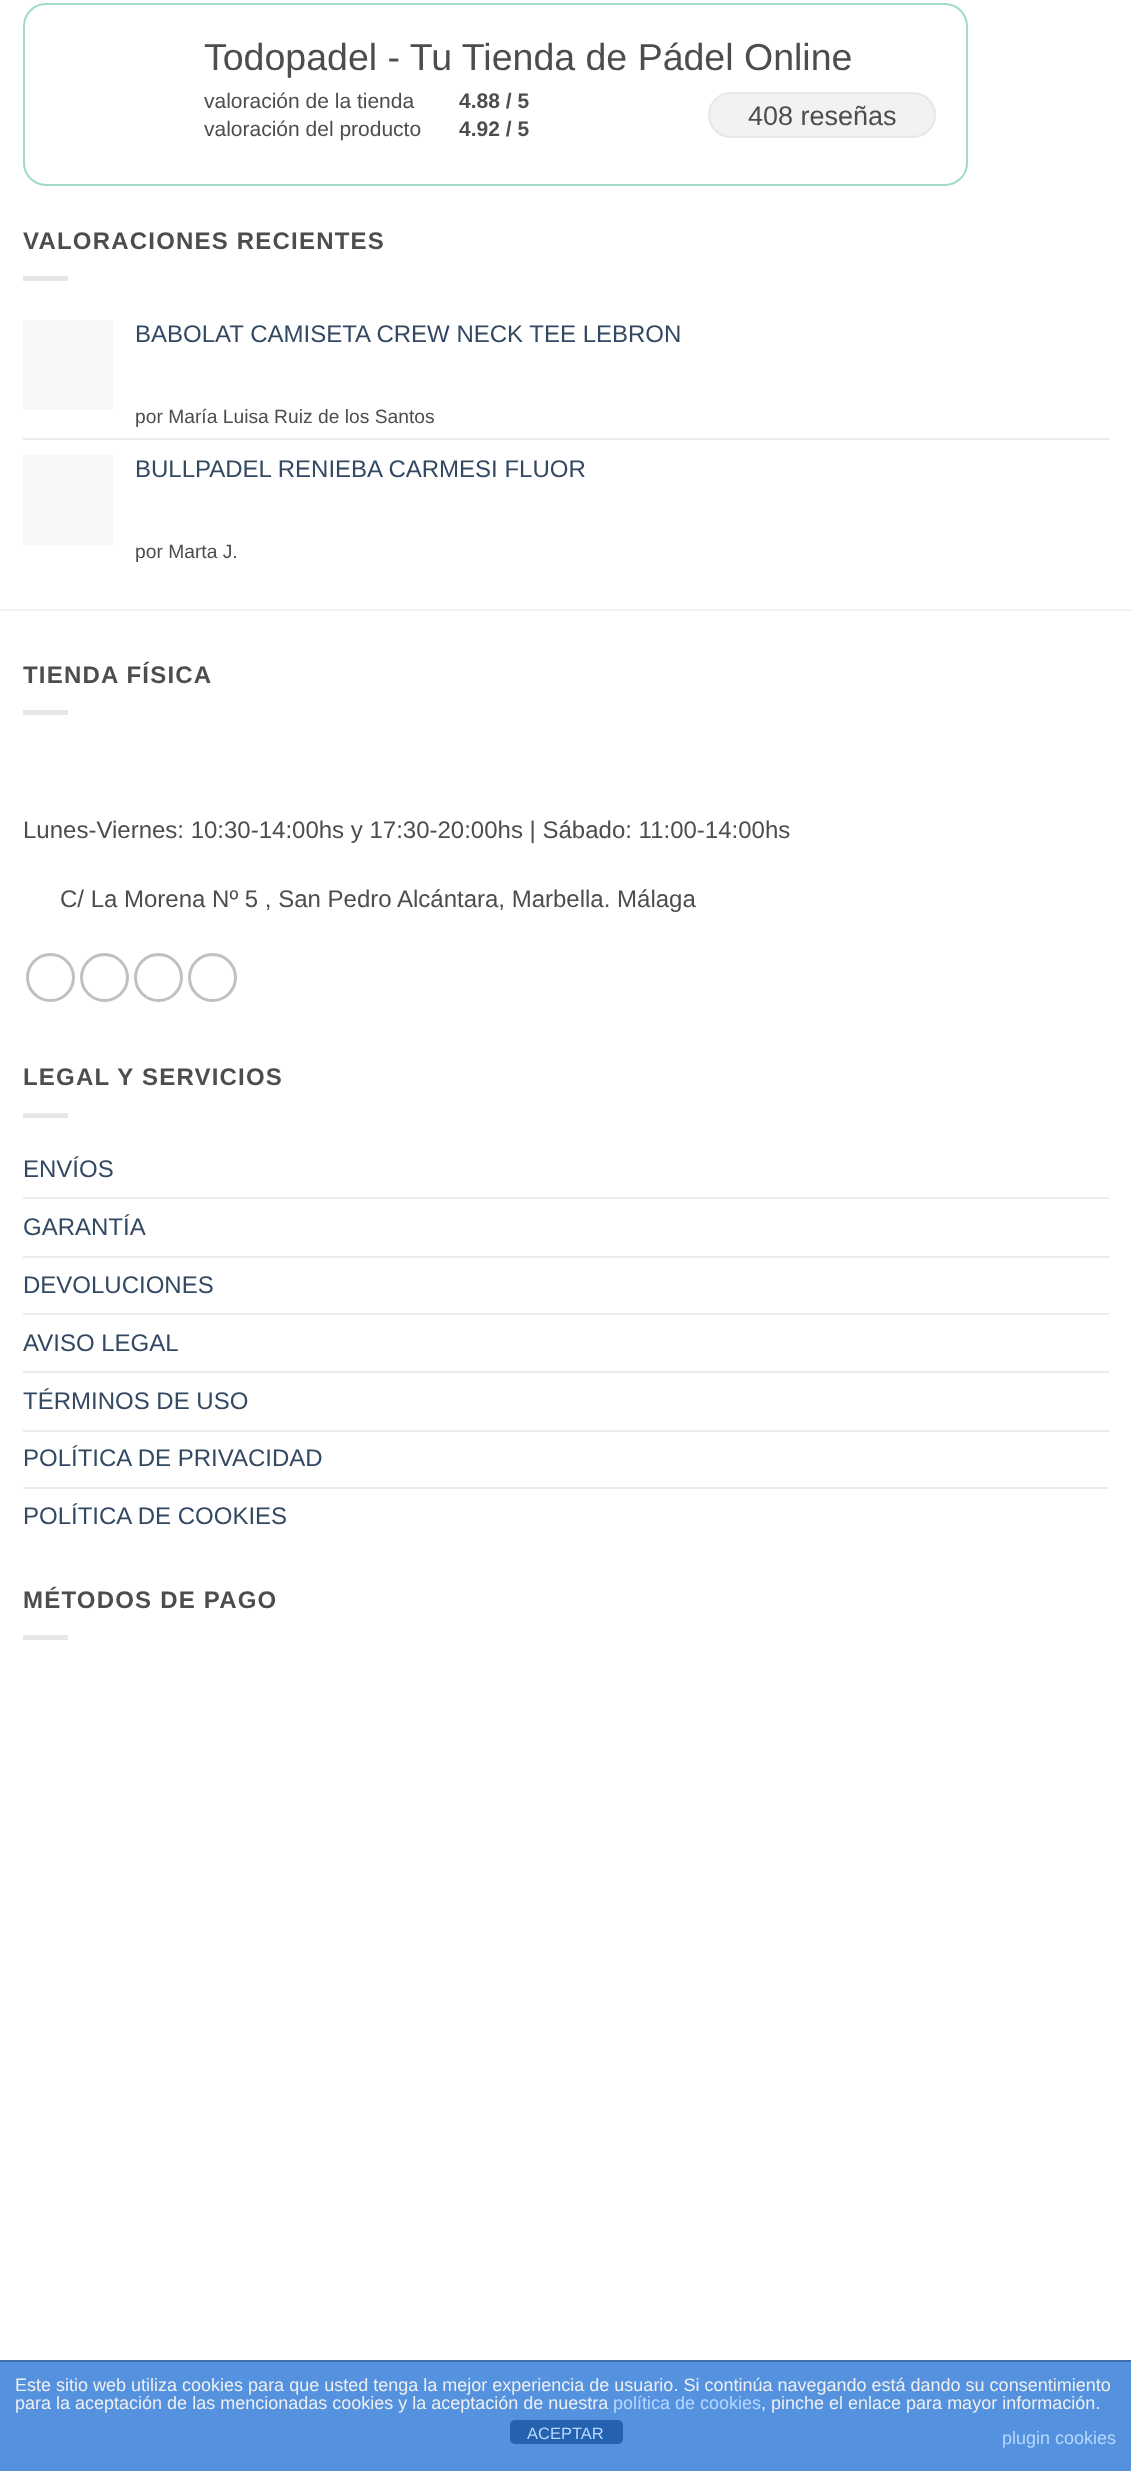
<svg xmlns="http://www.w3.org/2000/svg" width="1131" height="2471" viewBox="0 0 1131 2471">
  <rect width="100%" height="100%" fill="rgb(255,255,255)"/>
  <rect x="24" y="4" width="943" height="181" rx="22" fill="none" stroke="rgb(163,216,205)" stroke-width="2"/>
  <text x="204" y="70" font-family="Liberation Sans" font-size="37.5" fill="rgb(77,77,77)">Todopadel - Tu Tienda de Pádel Online</text>
  <text x="204" y="108" font-family="Liberation Sans" font-size="21" fill="rgb(77,77,77)">valoración de la tienda</text>
  <text x="459" y="108" font-family="Liberation Sans" font-size="21" font-weight="bold" fill="rgb(77,77,77)">4.88 / 5</text>
  <text x="204" y="136" font-family="Liberation Sans" font-size="21" fill="rgb(77,77,77)">valoración del producto</text>
  <text x="459" y="136" font-family="Liberation Sans" font-size="21" font-weight="bold" fill="rgb(77,77,77)">4.92 / 5</text>
  <rect x="708" y="92" width="228" height="46" rx="23" fill="rgb(242,242,242)"/>
  <rect x="709" y="93" width="226" height="44" rx="22" fill="none" stroke="rgba(223,223,223,0.6)" stroke-width="2"/>
  <text x="748" y="125" font-family="Liberation Sans" font-size="27" fill="rgb(77,77,77)">408 reseñas</text>
  <text x="23" y="249" font-family="Liberation Sans" font-size="24" font-weight="bold" letter-spacing="1.2" fill="rgb(77,77,77)">VALORACIONES RECIENTES</text>
  <rect x="23" y="276" width="45" height="5" fill="rgb(230,230,230)"/>
  <rect x="23" y="320" width="90" height="90" fill="rgb(247,247,247)"/>
  <text x="135" y="342" font-family="Liberation Sans" font-size="24" fill="rgb(51,72,98)">BABOLAT CAMISETA CREW NECK TEE LEBRON</text>
  <text x="135" y="423" font-family="Liberation Sans" font-size="19.25" fill="rgb(77,77,77)">por María Luisa Ruiz de los Santos</text>
  <rect x="23" y="438" width="1086" height="2" fill="rgb(236,236,236)"/>
  <rect x="23" y="455" width="90" height="90" fill="rgb(247,247,247)"/>
  <text x="135" y="477" font-family="Liberation Sans" font-size="24" fill="rgb(51,72,98)">BULLPADEL RENIEBA CARMESI FLUOR</text>
  <text x="135" y="558" font-family="Liberation Sans" font-size="19.25" fill="rgb(77,77,77)">por Marta J.</text>
  <rect x="0" y="609" width="1131" height="2" fill="rgb(242,242,242)"/>
  <text x="23" y="683" font-family="Liberation Sans" font-size="24" font-weight="bold" letter-spacing="1.2" fill="rgb(77,77,77)">TIENDA FÍSICA</text>
  <rect x="23" y="710" width="45" height="5" fill="rgb(230,230,230)"/>
  <g font-family="Liberation Sans" font-size="24" fill="rgb(77,77,77)">
    <text x="23" y="838">Lunes-Viernes: 10:30-14:00hs y 17:30-20:00hs | Sábado: 11:00-14:00hs</text>
    <text x="60" y="907">C/ La Morena Nº 5 , San Pedro Alcántara, Marbella. Málaga</text>
  </g>
  <circle cx="50.5" cy="977.5" r="23" fill="none" stroke="rgb(192,192,192)" stroke-width="3"/>
  <circle cx="104.5" cy="977.5" r="23" fill="none" stroke="rgb(192,192,192)" stroke-width="3"/>
  <circle cx="158.5" cy="977.5" r="23" fill="none" stroke="rgb(192,192,192)" stroke-width="3"/>
  <circle cx="212.5" cy="977.5" r="23" fill="none" stroke="rgb(192,192,192)" stroke-width="3"/>
  <text x="23" y="1085" font-family="Liberation Sans" font-size="24" font-weight="bold" letter-spacing="1.2" fill="rgb(77,77,77)">LEGAL Y SERVICIOS</text>
  <rect x="23" y="1113" width="45" height="5" fill="rgb(230,230,230)"/>
  <text x="23" y="1177" font-family="Liberation Sans" font-size="24" fill="rgb(51,72,98)">ENVÍOS</text>
  <rect x="23" y="1197" width="1086" height="2" fill="rgb(236,236,236)"/>
  <text x="23" y="1235" font-family="Liberation Sans" font-size="24" fill="rgb(51,72,98)">GARANTÍA</text>
  <rect x="23" y="1256" width="1086" height="2" fill="rgb(236,236,236)"/>
  <text x="23" y="1293" font-family="Liberation Sans" font-size="24" fill="rgb(51,72,98)">DEVOLUCIONES</text>
  <rect x="23" y="1313" width="1086" height="2" fill="rgb(236,236,236)"/>
  <text x="23" y="1351" font-family="Liberation Sans" font-size="24" fill="rgb(51,72,98)">AVISO LEGAL</text>
  <rect x="23" y="1371" width="1086" height="2" fill="rgb(236,236,236)"/>
  <text x="23" y="1409" font-family="Liberation Sans" font-size="24" fill="rgb(51,72,98)">TÉRMINOS DE USO</text>
  <rect x="23" y="1430" width="1086" height="2" fill="rgb(236,236,236)"/>
  <text x="23" y="1466" font-family="Liberation Sans" font-size="24" fill="rgb(51,72,98)">POLÍTICA DE PRIVACIDAD</text>
  <rect x="23" y="1487" width="1086" height="2" fill="rgb(236,236,236)"/>
  <text x="23" y="1524" font-family="Liberation Sans" font-size="24" fill="rgb(51,72,98)">POLÍTICA DE COOKIES</text>
  <text x="23" y="1608" font-family="Liberation Sans" font-size="24" font-weight="bold" letter-spacing="1.2" fill="rgb(77,77,77)">MÉTODOS DE PAGO</text>
  <rect x="23" y="1635" width="45" height="5" fill="rgb(230,230,230)"/>
  <rect x="0" y="2362" width="1131" height="109" fill="rgb(84,146,224)"/>
  <rect x="0" y="2360" width="1131" height="2" fill="rgb(63,109,167)"/>
  <g font-family="Liberation Sans" font-size="18" fill="rgb(238,238,238)">
    <text>
      <tspan x="15" y="2391">Este sitio web utiliza cookies para que usted tenga la mejor experiencia de usuario. Si continúa navegando está dando su consentimiento</tspan>
      <tspan x="15" y="2409">para la aceptación de las mencionadas cookies y la aceptación de nuestra</tspan>
    </text>
  </g>
  <text x="613" y="2409" font-family="Liberation Sans" font-size="18" fill="rgb(183,215,255)">política de cookies</text>
  <text x="761" y="2409" font-family="Liberation Sans" font-size="18" fill="rgb(238,238,238)">, pinche el enlace para mayor información.</text>
  <text x="1002" y="2444" font-family="Liberation Sans" font-size="18" fill="rgb(183,215,255)">plugin cookies</text>
  <rect x="510" y="2420" width="113" height="24" rx="5" fill="rgb(36,98,176)"/>
  <text x="527" y="2439" font-family="Liberation Sans" font-size="16.5" fill="rgb(183,215,255)">ACEPTAR</text>
</svg>
